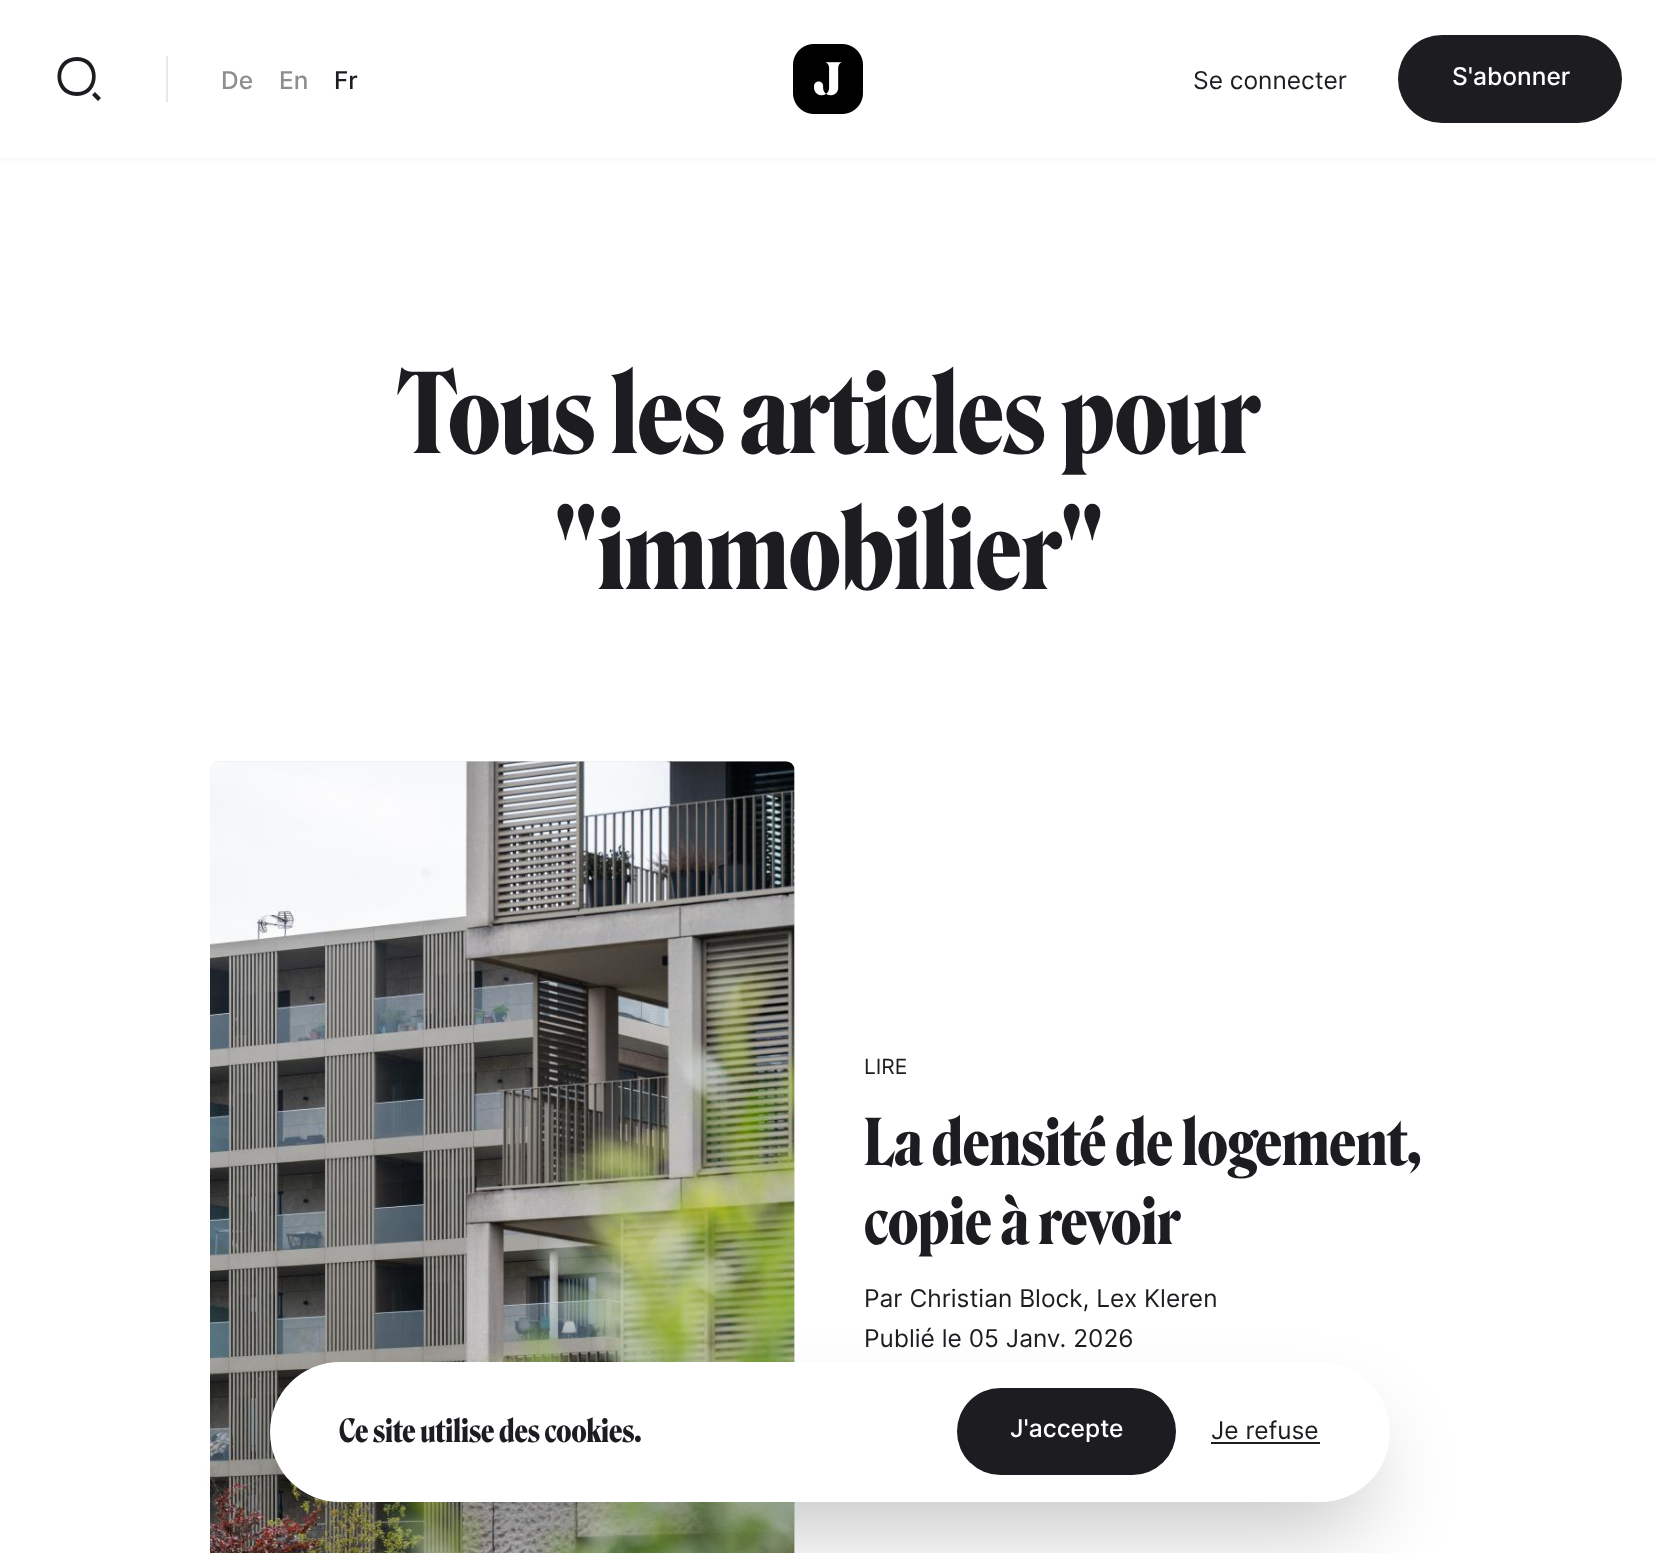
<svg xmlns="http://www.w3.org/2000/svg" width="1656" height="1553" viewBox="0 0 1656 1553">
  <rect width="100%" height="100%" fill="rgb(255,255,255)"/>
  <rect x="0" y="2" width="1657" height="157" fill="rgba(0,0,0,0.05)" filter="blur(2px)"/>
  <rect x="0" y="0" width="1656" height="158" fill="rgb(255,255,255)"/>
  <path d="M77 57C102 57 102 96 77 96C51 96 51 57 77 57ZM77 92C97 92 97 61 77 61C56 61 56 92 77 92ZM95 92L101 98L98 101L92 95Z" fill="rgb(28,28,33)"/>
  <rect x="166" y="56" width="2" height="46" fill="rgb(232,232,233)"/>
  <g font-family="Inter" font-size="24.5" font-weight="500" fill="rgb(142,142,144)">
    <text x="221" y="89">De</text>
    <text x="279" y="89">En</text>
  </g>
  <text x="334" y="89" font-family="Inter" font-size="24.5" font-weight="500" fill="rgb(28,28,33)">Fr</text>
  <image x="793" y="44" width="70" height="70" href="pic1.png"/>
  <text x="1193" y="89" font-family="Inter" font-size="24.5" fill="rgb(28,28,33)">Se connecter</text>
  <rect x="1398" y="35" width="224" height="88" rx="44" fill="rgb(28,28,33)"/>
  <text x="1452" y="85" font-family="Inter" font-size="24.5" font-weight="500" fill="rgb(255,255,255)">S'abonner</text>
  <g font-family="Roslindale" font-size="108.5" font-weight="bold" fill="rgb(28,28,33)">
    <text x="398" y="453">Tous les articles pour</text>
    <text x="554" y="589">"immobilier"</text>
  </g>
  <rect x="210" y="761" width="585" height="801" rx="9" fill="rgb(232,232,233)"/>
  <image x="210" y="761" width="585" height="792" href="pic2.png"/>
  <text x="864" y="1074" font-family="Inter" font-size="21" fill="rgb(28,28,33)">LIRE</text>
  <g font-family="Roslindale" font-size="63" font-weight="bold" fill="rgb(28,28,33)">
    <text>
      <tspan x="864" y="1165">La densité de logement,</tspan>
      <tspan x="864" y="1244">copie à revoir</tspan>
    </text>
  </g>
  <g font-family="Inter" font-size="24.5" fill="rgb(28,28,33)">
    <text>
      <tspan x="864" y="1307">Par Christian Block, Lex Kleren</tspan>
      <tspan x="864" y="1347">Publié le 05 Janv. 2026</tspan>
    </text>
  </g>
  <rect x="291" y="1426" width="1078" height="98" rx="49" fill="rgba(0,0,0,0.25)" filter="blur(44px)"/>
  <rect x="270" y="1362" width="1120" height="140" rx="70" fill="rgb(255,255,255)"/>
  <text x="339" y="1442" font-family="Roslindale" font-size="31.5" font-weight="bold" fill="rgb(28,28,33)">Ce site utilise des cookies.</text>
  <rect x="957" y="1388" width="219" height="87" rx="43.5" fill="rgb(28,28,33)"/>
  <text x="1010" y="1437" font-family="Inter" font-size="24.5" font-weight="500" fill="rgb(255,255,255)">J'accepte</text>
  <text x="1211" y="1439" font-family="Inter" font-size="24.5" fill="rgb(28,28,33)">Je refuse</text>
  <rect x="1211" y="1442" width="109" height="2" fill="rgb(28,28,33)"/>
</svg>
